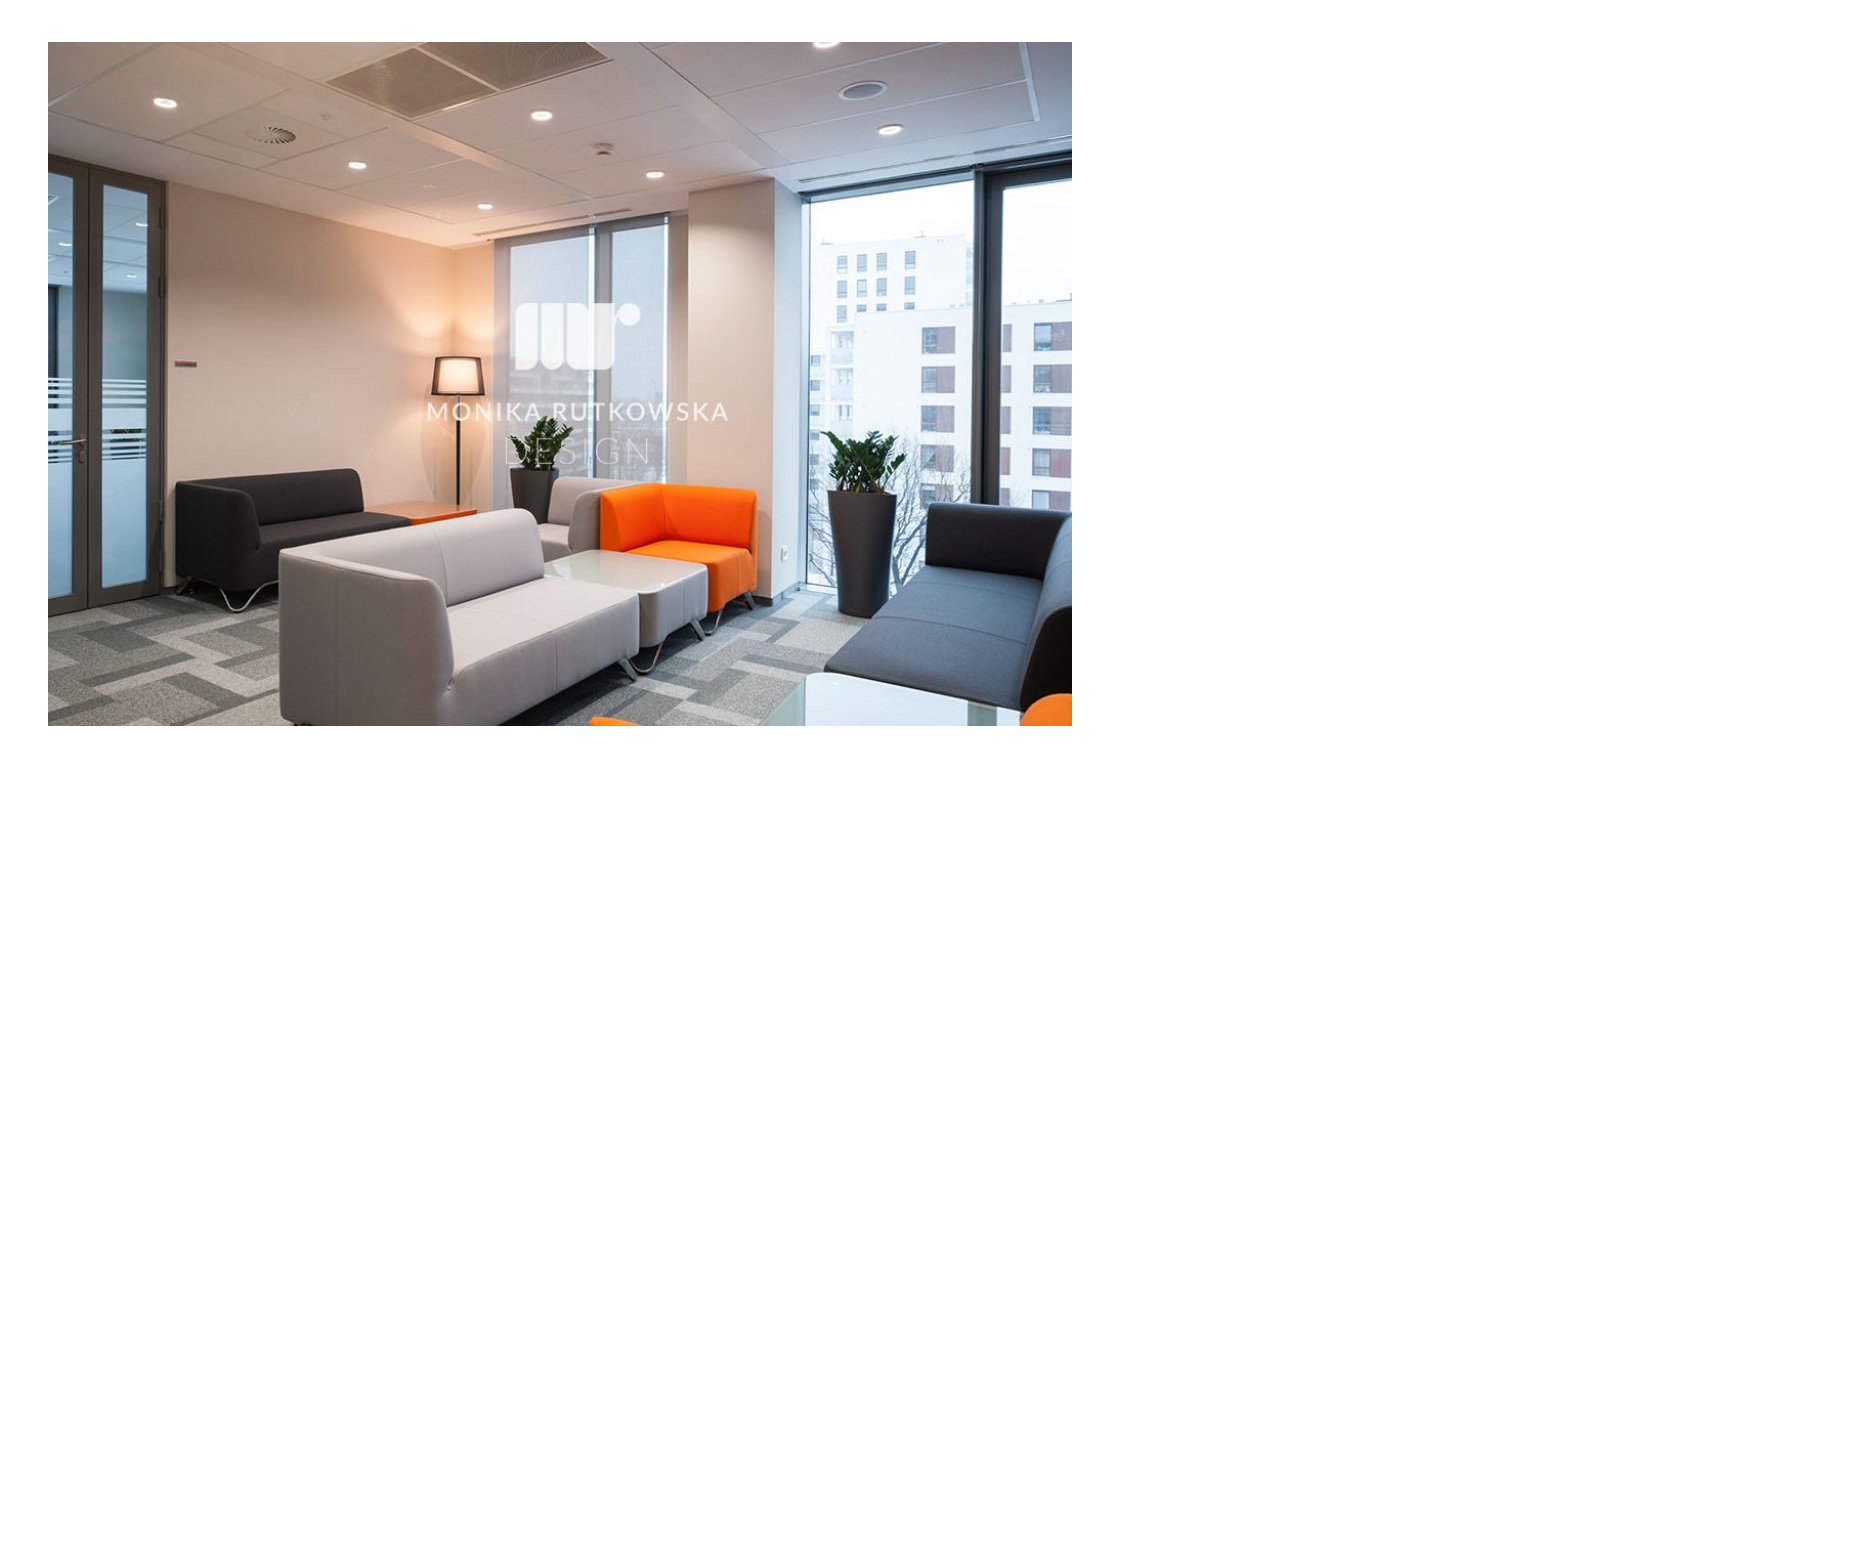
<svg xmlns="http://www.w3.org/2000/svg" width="1865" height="1555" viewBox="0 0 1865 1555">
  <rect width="100%" height="100%" fill="rgb(255,255,255)"/>
  <image x="48" y="42" width="1024" height="684" href="pic1.png"/>
</svg>
